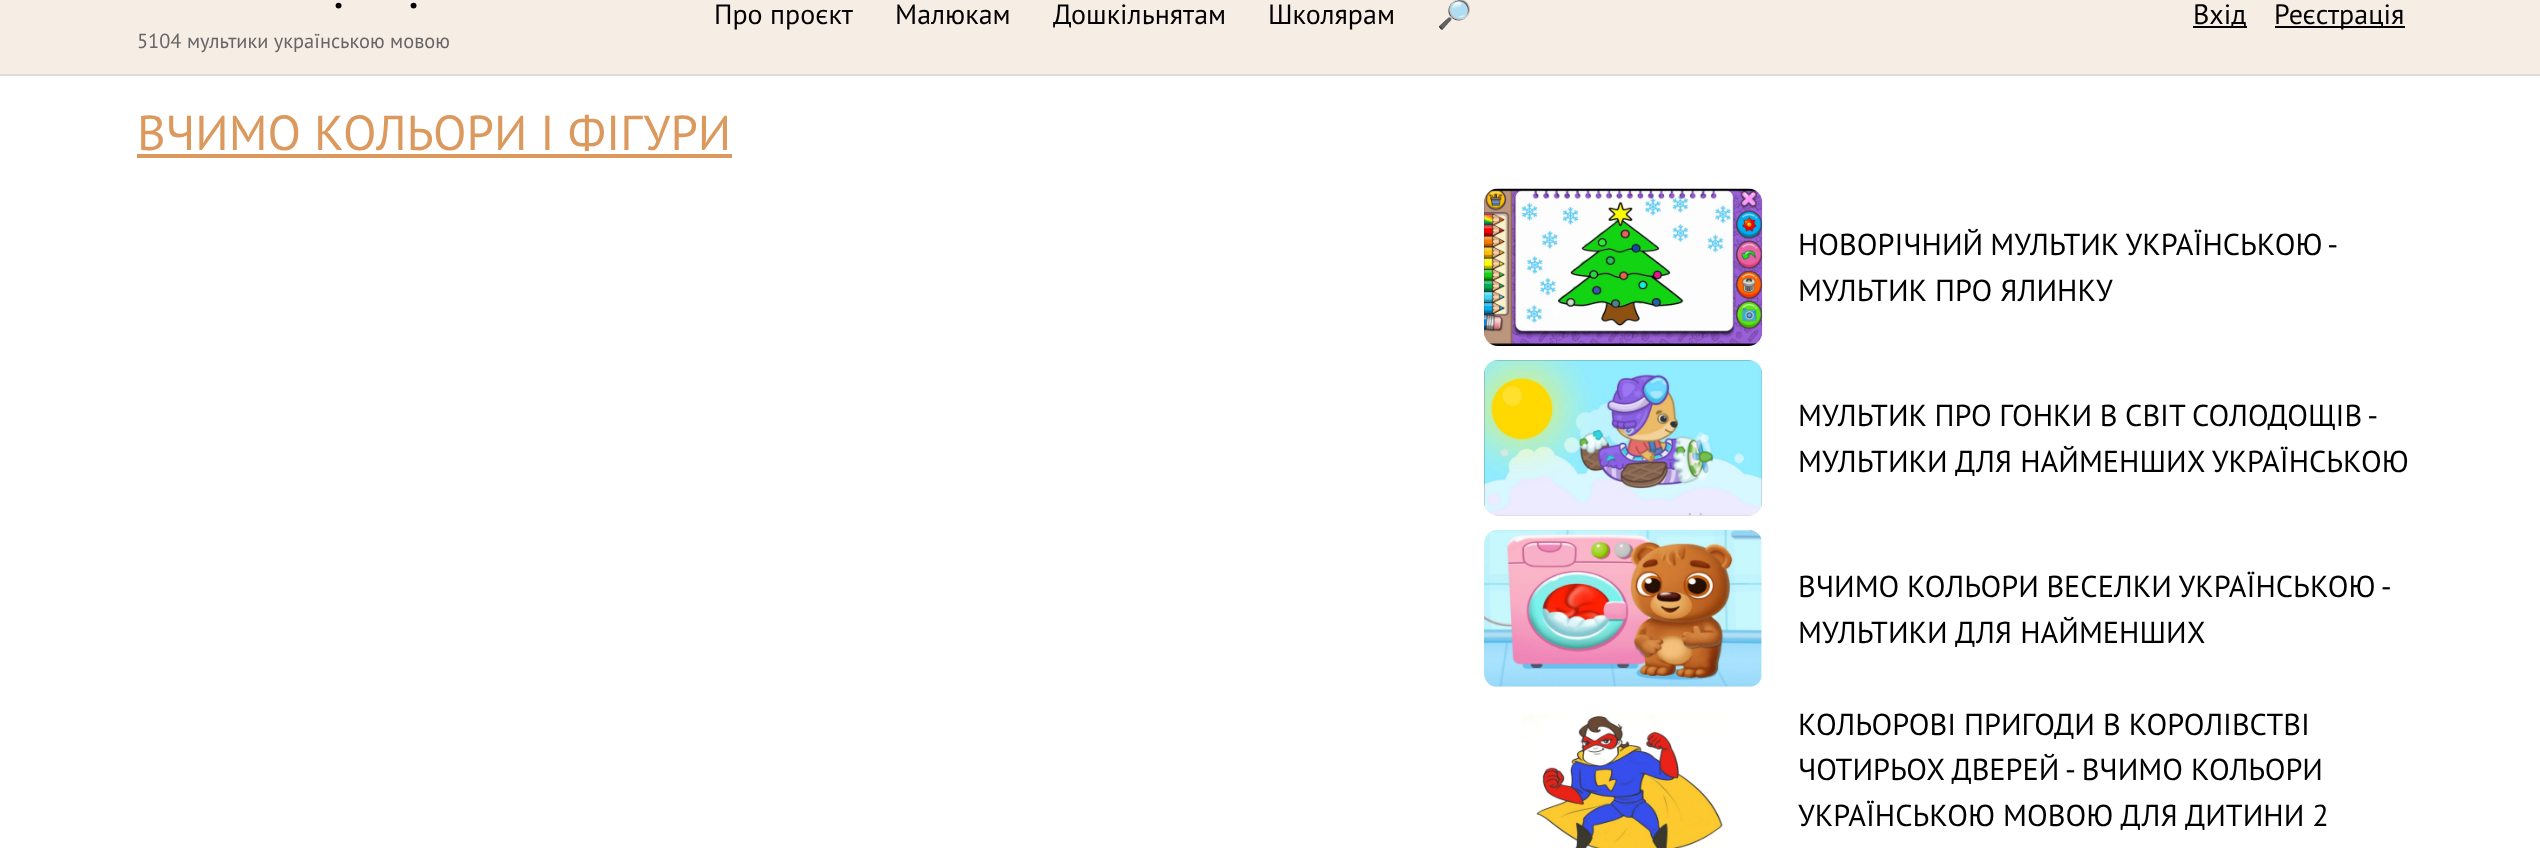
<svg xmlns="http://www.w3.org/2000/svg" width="2540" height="848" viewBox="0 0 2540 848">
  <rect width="100%" height="100%" fill="rgb(255,255,255)"/>
  <rect x="0" y="0" width="2540" height="74" fill="rgb(246,237,229)"/>
  <rect x="0" y="74" width="2540" height="2" fill="rgb(221,221,221)"/>
  <g font-family="PT Sans" font-size="37" font-weight="bold" fill="rgb(0,0,0)">
    <text x="334" y="8">.</text>
    <text x="409" y="8">.</text>
  </g>
  <text x="137" y="48" font-family="PT Sans" font-size="20.4" fill="rgb(102,102,102)">5104 мультики українською мовою</text>
  <g font-family="PT Sans" font-size="28" fill="rgb(0,0,0)">
    <text x="714" y="24">Про проєкт</text>
    <text x="895" y="24">Малюкам</text>
    <text x="1053" y="24">Дошкільнятам</text>
    <text x="1268" y="24">Школярам</text>
  </g>
  <text x="1437" y="24" font-family="Noto Color Emoji" font-size="28" fill="rgb(0,0,0)">🔎</text>
  <rect x="2193" y="26" width="54" height="2" fill="rgb(0,0,0)"/>
  <text x="2193" y="24" font-family="PT Sans" font-size="28" fill="rgb(0,0,0)">Вхід</text>
  <rect x="2275" y="26" width="130" height="2" fill="rgb(0,0,0)"/>
  <text x="2274" y="24" font-family="PT Sans" font-size="28" fill="rgb(0,0,0)">Реєстрація</text>
  <text x="137" y="150" font-family="PT Sans" font-size="49" fill="rgb(219,153,94)">ВЧИМО КОЛЬОРИ І ФІГУРИ</text>
  <rect x="137" y="154" width="595" height="4" fill="rgb(219,153,94)"/>
  <image x="1484" y="188" width="279" height="158" href="pic1.png"/>
  <g font-family="PT Sans" font-size="30.3" fill="rgb(0,0,0)">
    <text>
      <tspan x="1798" y="255" word-spacing="-1">НОВОРІЧНИЙ МУЛЬТИК УКРАЇНСЬКОЮ -</tspan>
      <tspan x="1798" y="301">МУЛЬТИК ПРО ЯЛИНКУ</tspan>
    </text>
  </g>
  <image x="1484" y="360" width="279" height="156" href="pic2.png"/>
  <g font-family="PT Sans" font-size="30.3" fill="rgb(0,0,0)">
    <text>
      <tspan x="1798" y="426" word-spacing="-0.5">МУЛЬТИК ПРО ГОНКИ В СВІТ СОЛОДОЩІВ -</tspan>
      <tspan x="1798" y="472">МУЛЬТИКИ ДЛЯ НАЙМЕНШИХ УКРАЇНСЬКОЮ</tspan>
    </text>
  </g>
  <image x="1484" y="529" width="278" height="158" href="pic3.png"/>
  <g font-family="PT Sans" font-size="30.3" fill="rgb(0,0,0)">
    <text>
      <tspan x="1798" y="597" word-spacing="-0.5">ВЧИМО КОЛЬОРИ ВЕСЕЛКИ УКРАЇНСЬКОЮ -</tspan>
      <tspan x="1798" y="643">МУЛЬТИКИ ДЛЯ НАЙМЕНШИХ</tspan>
    </text>
  </g>
  <image x="1522" y="714" width="202" height="134" href="pic4.png"/>
  <g font-family="PT Sans" font-size="30.3" fill="rgb(0,0,0)">
    <text>
      <tspan x="1798" y="735">КОЛЬОРОВІ ПРИГОДИ В КОРОЛІВСТВІ</tspan>
      <tspan x="1798" y="780">ЧОТИРЬОХ ДВЕРЕЙ - ВЧИМО КОЛЬОРИ</tspan>
      <tspan x="1798" y="826">УКРАЇНСЬКОЮ МОВОЮ ДЛЯ ДИТИНИ 2</tspan>
    </text>
  </g>
</svg>
